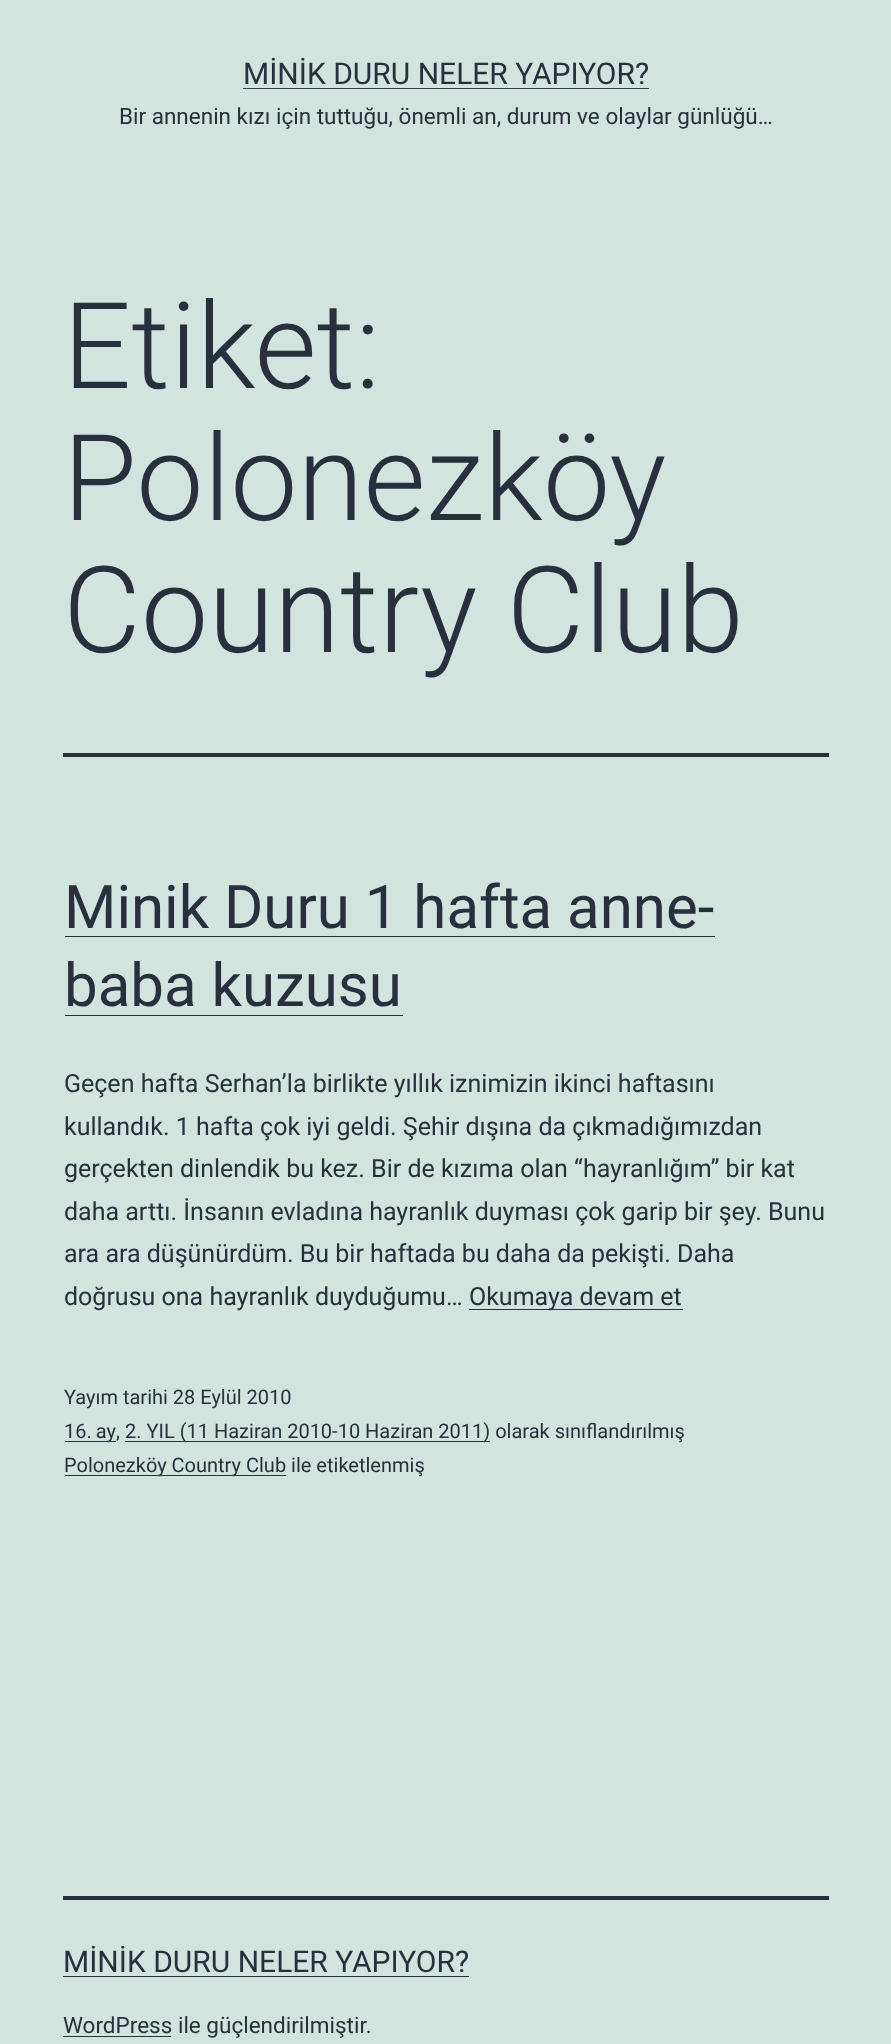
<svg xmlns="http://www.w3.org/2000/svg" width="891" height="2044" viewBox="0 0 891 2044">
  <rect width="100%" height="100%" fill="rgb(209,228,221)"/>
  <text x="243" y="84" font-family="Roboto" font-size="30" fill="rgb(40,48,61)">MİNİK DURU NELER YAPIYOR?</text>
  <rect x="243" y="88" width="406" height="1" fill="rgb(57,65,77)"/>
  <text x="119" y="124" font-family="Roboto" font-size="22.5" fill="rgb(40,48,61)">Bir annenin kızı için tuttuğu, önemli an, durum ve olaylar günlüğü…</text>
  <rect x="63" y="753" width="766" height="4" fill="rgb(40,48,61)"/>
  <g font-family="Roboto" font-size="120" font-weight="300" fill="rgb(40,48,61)">
    <text>
      <tspan x="63" y="388">Etiket:</tspan>
      <tspan x="63" y="520">Polonezköy</tspan>
      <tspan x="63" y="652">Country Club</tspan>
    </text>
  </g>
  <text x="64" y="928" font-family="Roboto" font-size="60" fill="rgb(40,48,61)">Minik Duru 1 hafta anne-</text>
  <rect x="65" y="936" width="650" height="1" fill="rgb(40,48,61)"/>
  <text x="64" y="1006" font-family="Roboto" font-size="60" fill="rgb(40,48,61)">baba kuzusu</text>
  <rect x="65" y="1015" width="338" height="1" fill="rgb(40,48,61)"/>
  <g font-family="Roboto" font-size="25" fill="rgb(40,48,61)">
    <text>
      <tspan x="64" y="1092">Geçen hafta Serhan’la birlikte yıllık iznimizin ikinci haftasını</tspan>
      <tspan x="64" y="1135">kullandık. 1 hafta çok iyi geldi. Şehir dışına da çıkmadığımızdan</tspan>
      <tspan x="64" y="1177">gerçekten dinlendik bu kez. Bir de kızıma olan “hayranlığım” bir kat</tspan>
      <tspan x="64" y="1220">daha arttı. İnsanın evladına hayranlık duyması çok garip bir şey. Bunu</tspan>
      <tspan x="64" y="1262">ara ara düşünürdüm. Bu bir haftada bu daha da pekişti. Daha</tspan>
      <tspan x="64" y="1305">doğrusu ona hayranlık duyduğumu…</tspan>
    </text>
  </g>
  <rect x="469" y="1309" width="214" height="1" fill="rgb(40,48,61)"/>
  <text x="469" y="1305" font-family="Roboto" font-size="25" fill="rgb(40,48,61)">Okumaya devam et</text>
  <text x="64" y="1404" font-family="Roboto" font-size="20" fill="rgb(40,48,61)">Yayım tarihi 28 Eylül 2010</text>
  <rect x="65" y="1441" width="51" height="1" fill="rgb(40,48,61)"/>
  <g font-family="Roboto" font-size="20" fill="rgb(40,48,61)">
    <text x="64" y="1438" word-spacing="-1">16. ay</text>
    <text x="116" y="1438">,</text>
  </g>
  <rect x="125" y="1441" width="365" height="1" fill="rgb(40,48,61)"/>
  <text x="125" y="1438" font-family="Roboto" font-size="20" fill="rgb(40,48,61)">2. YIL (11 Haziran 2010-10 Haziran 2011) olarak sınıflandırılmış</text>
  <rect x="65" y="1475" width="221" height="1" fill="rgb(40,48,61)"/>
  <text x="64" y="1472" font-family="Roboto" font-size="20" fill="rgb(40,48,61)">Polonezköy Country Club ile etiketlenmiş</text>
  <rect x="63" y="1896" width="766" height="4" fill="rgb(40,48,61)"/>
  <text x="63" y="1972" font-family="Roboto" font-size="30" fill="rgb(40,48,61)">MİNİK DURU NELER YAPIYOR?</text>
  <rect x="63" y="1976" width="406" height="1" fill="rgb(40,48,61)"/>
  <rect x="63" y="2036" width="108" height="1" fill="rgb(40,48,61)"/>
  <text x="63" y="2033" font-family="Roboto" font-size="22.5" fill="rgb(40,48,61)">WordPress ile güçlendirilmiştir.</text>
</svg>
